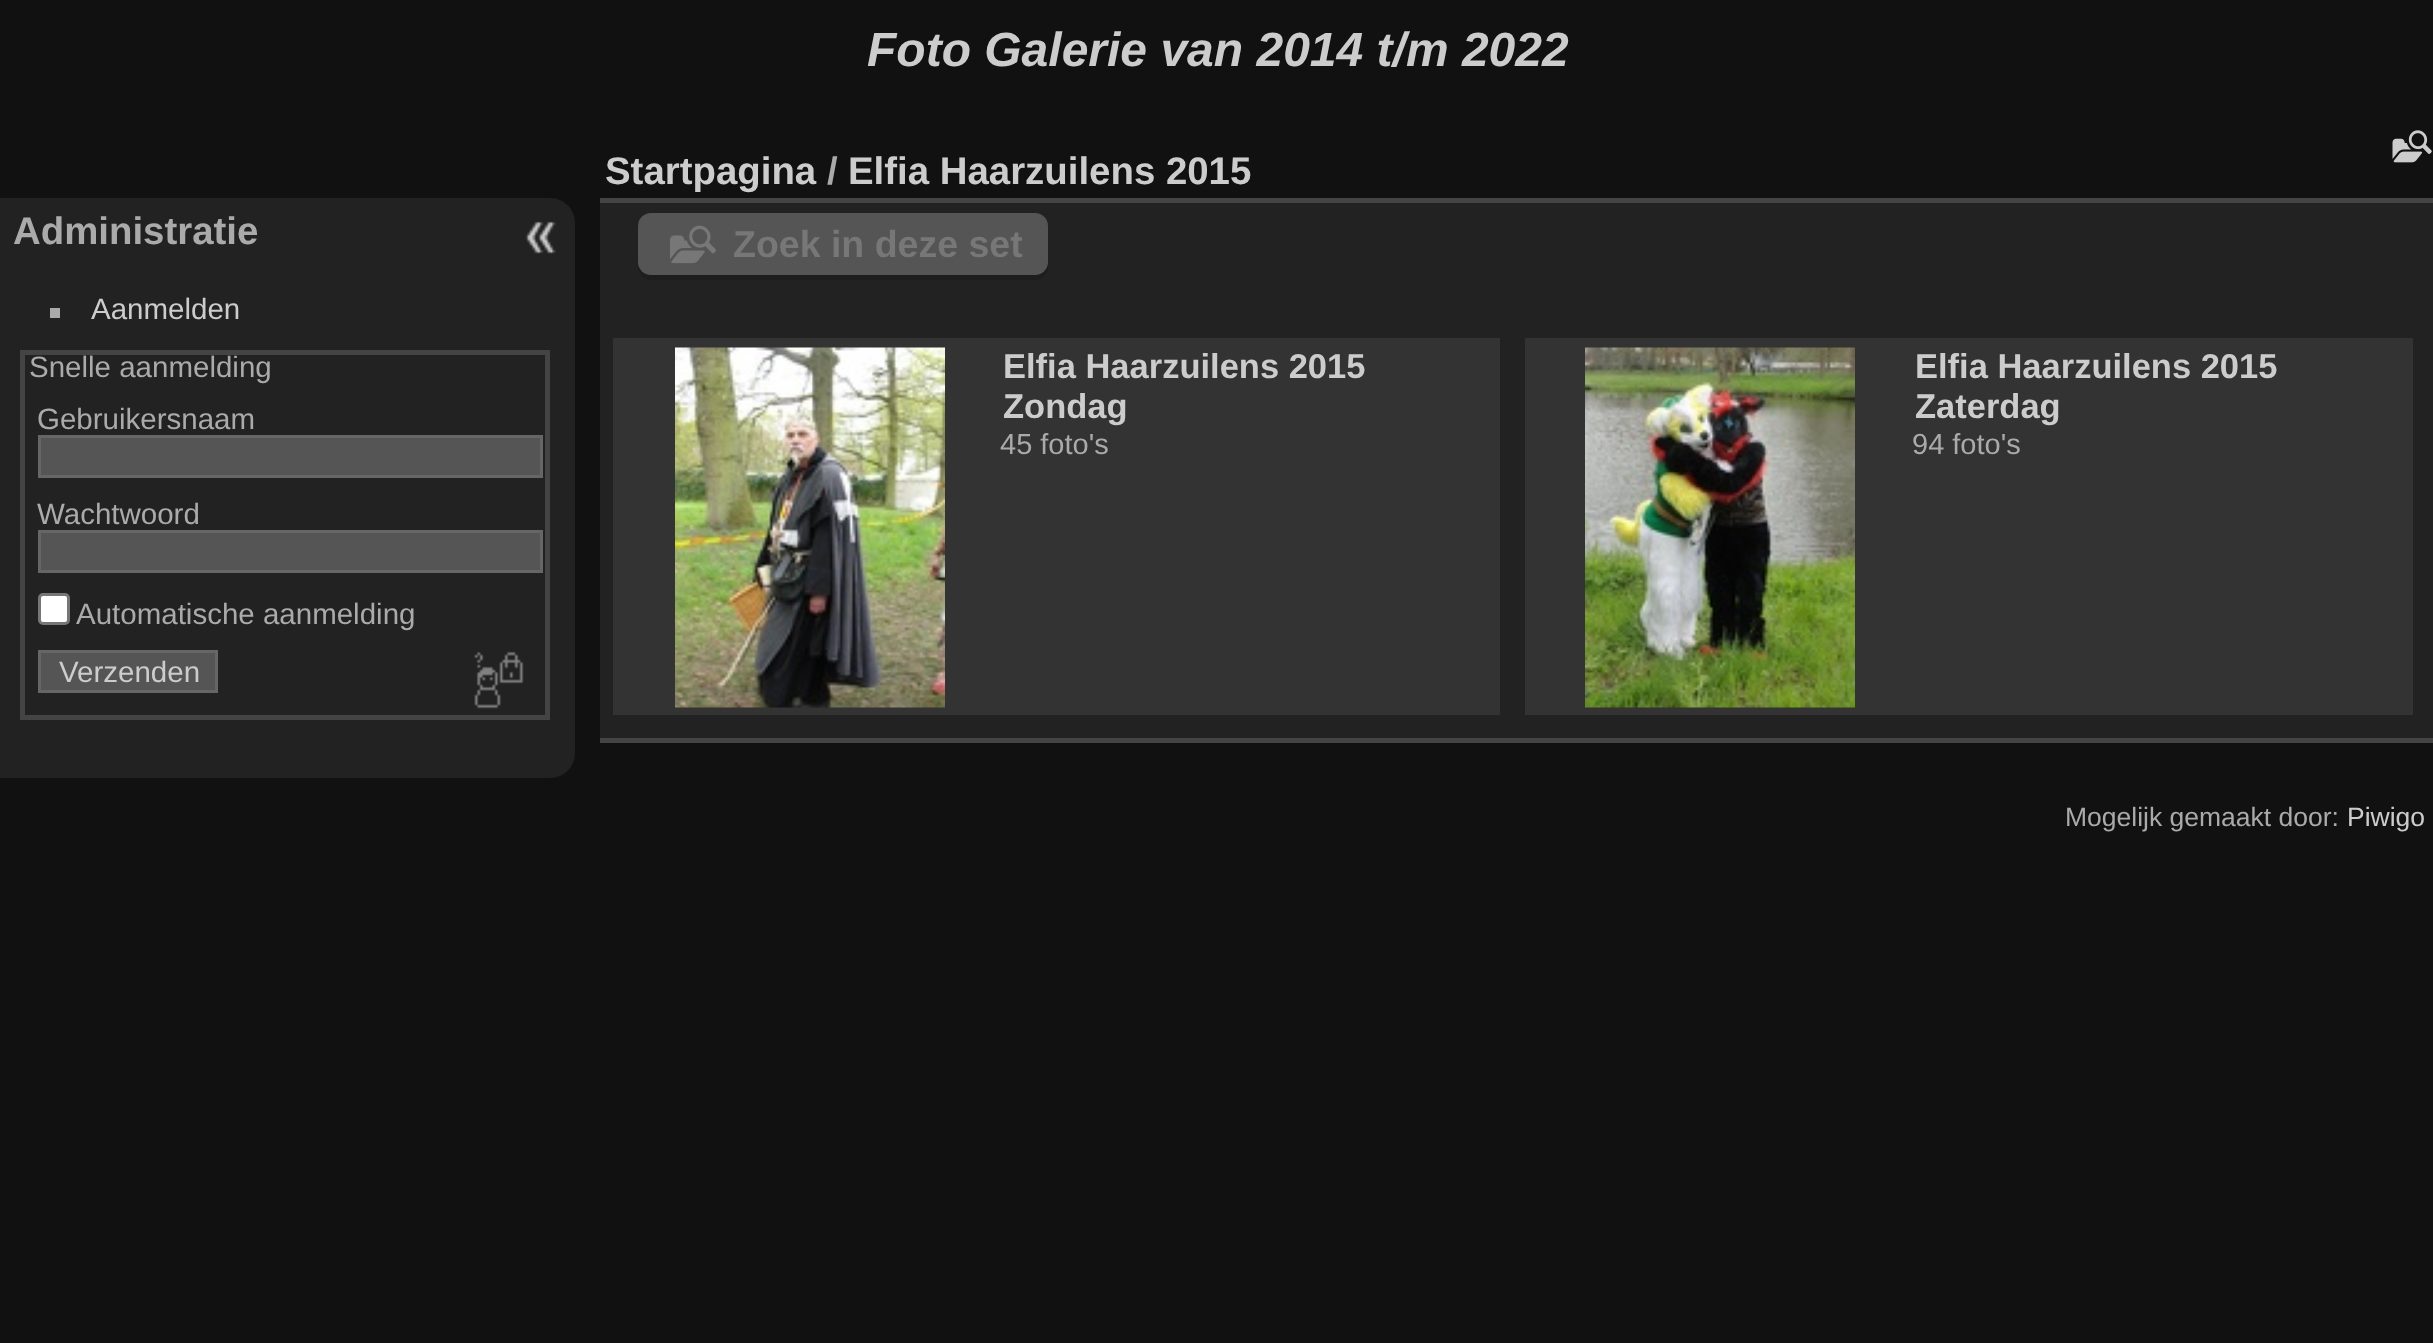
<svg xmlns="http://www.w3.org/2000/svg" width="2433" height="1343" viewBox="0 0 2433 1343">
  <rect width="100%" height="100%" fill="rgb(17,17,17)"/>
  <text x="867" y="66" font-family="Liberation Sans" font-size="48" font-weight="bold" font-style="italic" fill="rgb(204,204,204)">Foto Galerie van 2014 t/m 2022</text>
  <path d="M0 198H550C564 198 575 209 575 223V753C575 767 564 778 550 778H0Z" fill="rgb(34,34,34)"/>
  <text x="13" y="244" font-family="Liberation Sans" font-size="38.4" font-weight="bold" fill="rgb(170,170,170)">Administratie</text>
  <rect x="50" y="308" width="10" height="10" fill="rgb(170,170,170)"/>
  <text x="91" y="319" font-family="Liberation Sans" font-size="29.5" fill="rgb(204,204,204)">Aanmelden</text>
  <rect x="22.5" y="352.5" width="525" height="365" fill="none" stroke="rgb(68,68,68)" stroke-width="5"/>
  <g font-family="Liberation Sans" font-size="29.5" fill="rgb(170,170,170)">
    <text x="29" y="377">Snelle aanmelding</text>
    <text x="37" y="429">Gebruikersnaam</text>
  </g>
  <rect x="39.5" y="436.5" width="502" height="40" fill="rgb(85,85,85)" stroke="rgb(102,102,102)" stroke-width="3"/>
  <text x="37" y="524" font-family="Liberation Sans" font-size="29.5" fill="rgb(170,170,170)">Wachtwoord</text>
  <rect x="39.5" y="531.5" width="502" height="40" fill="rgb(85,85,85)" stroke="rgb(102,102,102)" stroke-width="3"/>
  <rect x="39.5" y="594.5" width="29" height="29" rx="3.5" fill="rgb(255,255,255)" stroke="rgb(118,118,118)" stroke-width="3"/>
  <text x="76" y="624" font-family="Liberation Sans" font-size="29.5" fill="rgb(170,170,170)">Automatische aanmelding</text>
  <rect x="39.5" y="651.5" width="177" height="40" fill="rgb(85,85,85)" stroke="rgb(102,102,102)" stroke-width="3"/>
  <text x="59" y="682" font-family="Liberation Sans" font-size="29.5" fill="rgb(204,204,204)">Verzenden</text>
  <image x="474" y="651" width="50" height="58" href="pic1.png"/>
  <image x="525" y="221" width="31" height="33" href="pic2.png"/>
  <rect x="600" y="203" width="1833" height="535" fill="rgb(34,34,34)"/>
  <rect x="600" y="738" width="1833" height="5" fill="rgb(68,68,68)"/>
  <rect x="600" y="198" width="1833" height="5" fill="rgb(68,68,68)"/>
  <image x="2392" y="130" width="40" height="33" href="pic3.png"/>
  <text x="605" y="184" font-family="Liberation Sans" font-size="38.4" font-weight="bold" fill="rgb(204,204,204)">Startpagina</text>
  <text x="827" y="184" font-family="Liberation Sans" font-size="38.4" font-weight="bold" fill="rgb(170,170,170)">/</text>
  <text x="848" y="184" font-family="Liberation Sans" font-size="38.4" font-weight="bold" fill="rgb(204,204,204)">Elfia Haarzuilens 2015</text>
  <path d="M638 266V267C638 274 644 280 651 280H1035C1042 280 1048 274 1048 267V231V227V262C1048 269 1042 275 1035 275H650C644 275 640 271 638 266Z" fill="rgb(29,29,29)"/>
  <rect x="638" y="213" width="410" height="62" rx="13" fill="rgb(85,85,85)"/>
  <image x="670" y="225" width="46" height="39" href="pic4.png"/>
  <text x="733" y="257" font-family="Liberation Sans" font-size="37.5" font-weight="bold" fill="rgb(119,119,119)">Zoek in deze set</text>
  <rect x="613" y="338" width="887" height="377" fill="rgb(51,51,51)"/>
  <image x="675" y="347" width="270" height="361" href="pic5.png"/>
  <g font-family="Liberation Sans" font-size="34.5" font-weight="bold" fill="rgb(204,204,204)">
    <text>
      <tspan x="1003" y="378">Elfia Haarzuilens 2015</tspan>
      <tspan x="1003" y="418">Zondag</tspan>
    </text>
  </g>
  <text x="1000" y="454" font-family="Liberation Sans" font-size="29" fill="rgb(170,170,170)">45 foto's</text>
  <rect x="1525" y="338" width="888" height="377" fill="rgb(51,51,51)"/>
  <image x="1585" y="347" width="270" height="361" href="pic6.png"/>
  <g font-family="Liberation Sans" font-size="34.5" font-weight="bold" fill="rgb(204,204,204)">
    <text>
      <tspan x="1915" y="378">Elfia Haarzuilens 2015</tspan>
      <tspan x="1915" y="418">Zaterdag</tspan>
    </text>
  </g>
  <text x="1912" y="454" font-family="Liberation Sans" font-size="29" fill="rgb(170,170,170)">94 foto's</text>
  <text x="2065" y="826" font-family="Liberation Sans" font-size="26.5" fill="rgb(170,170,170)">Mogelijk gemaakt door:</text>
  <text x="2347" y="826" font-family="Liberation Sans" font-size="26.5" fill="rgb(204,204,204)">Piwigo</text>
</svg>
